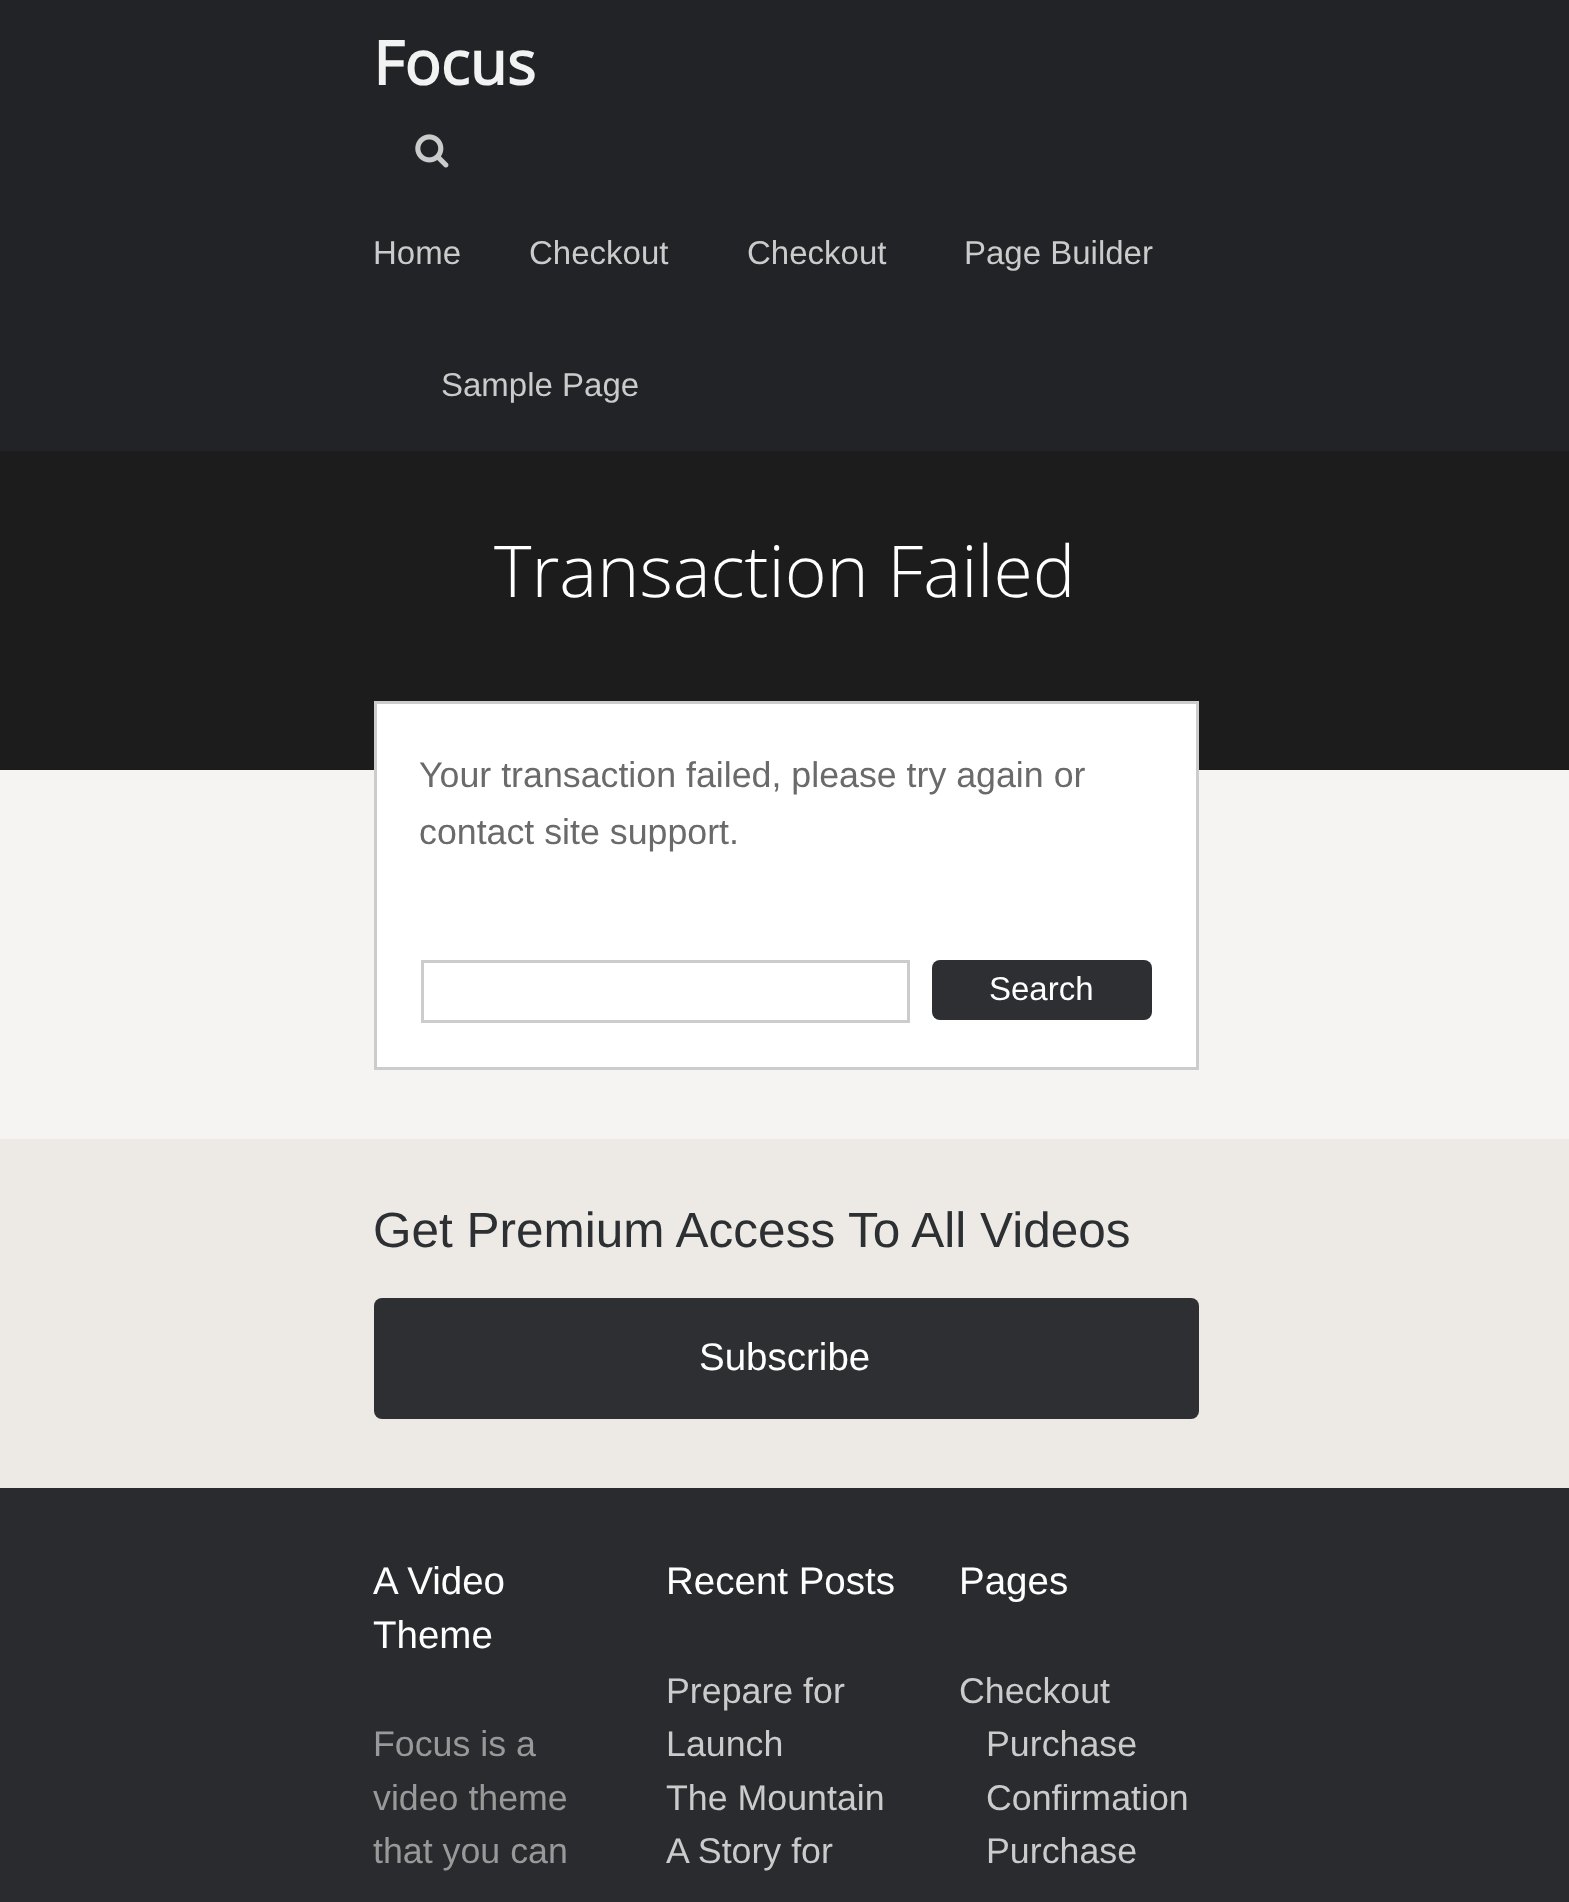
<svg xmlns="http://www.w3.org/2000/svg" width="1569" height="1902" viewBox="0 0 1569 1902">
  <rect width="100%" height="100%" fill="rgb(246,244,242)"/>
  <rect x="0" y="0" width="1569" height="451" fill="rgb(33,35,38)"/>
  <text x="373" y="85" font-family="Open Sans" font-size="60.5" font-weight="bold" fill="rgb(242,242,242)">Focus</text>
  <image x="415" y="134" width="34" height="34" href="pic1.png"/>
  <g font-family="Liberation Sans" font-size="33" fill="rgb(203,203,203)">
    <text x="373" y="264">Home</text>
    <text x="529" y="264">Checkout</text>
    <text x="747" y="264">Checkout</text>
    <text x="964" y="264">Page Builder</text>
    <text x="441" y="396">Sample Page</text>
  </g>
  <rect x="0" y="451" width="1569" height="319" fill="rgb(28,28,28)"/>
  <text x="494" y="597" font-family="Open Sans" font-size="71.5" font-weight="300" fill="rgb(255,255,255)">Transaction Failed</text>
  <rect x="375.5" y="702.5" width="822" height="366" fill="rgb(255,255,255)" stroke="rgb(204,204,204)" stroke-width="3"/>
  <g font-family="Liberation Sans" font-size="35.75" fill="rgb(106,106,106)">
    <text>
      <tspan x="419" y="787">Your transaction failed, please try again or</tspan>
      <tspan x="419" y="844">contact site support.</tspan>
    </text>
  </g>
  <rect x="422.5" y="961.5" width="486" height="60" fill="none" stroke="rgb(204,204,204)" stroke-width="3"/>
  <rect x="932" y="960" width="220" height="60" rx="8" fill="rgb(45,47,51)"/>
  <text x="989" y="1000" font-family="Liberation Sans" font-size="33" fill="rgb(255,255,255)">Search</text>
  <rect x="0" y="1139" width="1569" height="349" fill="rgb(237,233,228)"/>
  <text x="373" y="1247" font-family="Liberation Sans" font-size="49.5" fill="rgb(45,48,51)">Get Premium Access To All Videos</text>
  <rect x="374" y="1298" width="825" height="121" rx="8" fill="rgb(45,47,51)"/>
  <text x="699" y="1370" font-family="Liberation Sans" font-size="38.5" fill="rgb(255,255,255)">Subscribe</text>
  <rect x="0" y="1488" width="1569" height="414" fill="rgb(42,43,47)"/>
  <g font-family="Liberation Sans" font-size="38.5" fill="rgb(255,255,255)">
    <text>
      <tspan x="373" y="1594">A Video</tspan>
      <tspan x="373" y="1648">Theme</tspan>
    </text>
  </g>
  <g font-family="Liberation Sans" font-size="35.75" fill="rgb(153,153,153)">
    <text>
      <tspan x="373" y="1756">Focus is a</tspan>
      <tspan x="373" y="1810">video theme</tspan>
      <tspan x="373" y="1863">that you can</tspan>
    </text>
  </g>
  <text x="666" y="1594" font-family="Liberation Sans" font-size="38.5" fill="rgb(255,255,255)">Recent Posts</text>
  <g font-family="Liberation Sans" font-size="35.75" fill="rgb(203,203,203)">
    <text>
      <tspan x="666" y="1703">Prepare for</tspan>
      <tspan x="666" y="1756">Launch</tspan>
      <tspan x="666" y="1810">The Mountain</tspan>
      <tspan x="666" y="1863">A Story for</tspan>
    </text>
  </g>
  <text x="959" y="1594" font-family="Liberation Sans" font-size="38.5" fill="rgb(255,255,255)">Pages</text>
  <g font-family="Liberation Sans" font-size="35.75" fill="rgb(203,203,203)">
    <text x="959" y="1703">Checkout</text>
    <text>
      <tspan x="986" y="1756">Purchase</tspan>
      <tspan x="986" y="1810">Confirmation</tspan>
      <tspan x="986" y="1863">Purchase</tspan>
    </text>
  </g>
</svg>
